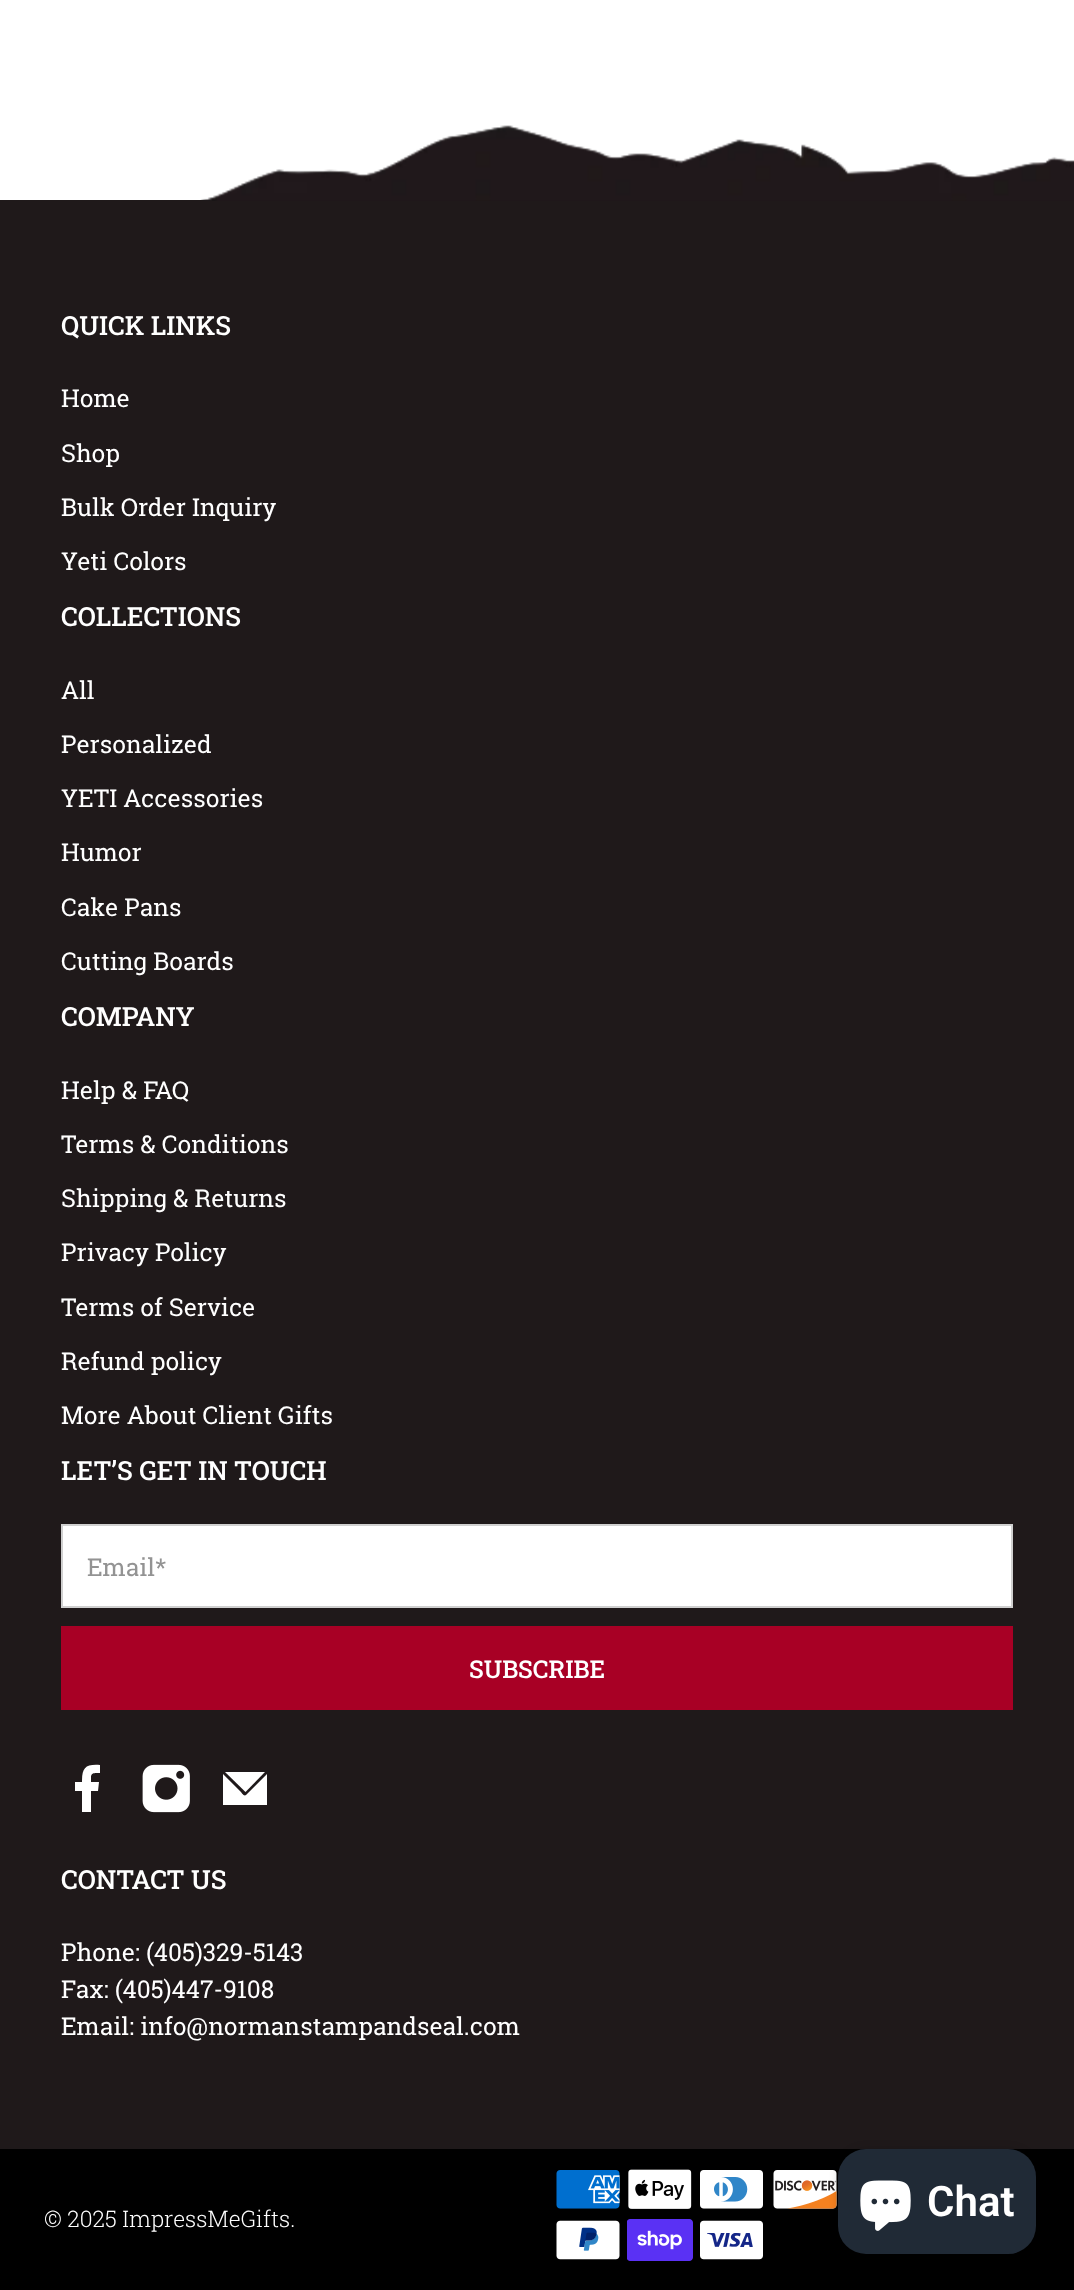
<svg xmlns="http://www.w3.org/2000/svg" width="1074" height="2290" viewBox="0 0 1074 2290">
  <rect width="100%" height="100%" fill="rgb(255,255,255)"/>
  <rect x="0" y="200" width="1074" height="1949" fill="rgb(31,25,26)"/>
  <image x="200" y="125" width="874" height="76" href="pic1.png"/>
  <rect x="0" y="2149" width="1074" height="141" fill="rgb(0,0,0)"/>
  <text x="61" y="335" font-family="Roboto Slab" font-size="26.25" font-weight="500" fill="rgb(255,255,255)">QUICK LINKS</text>
  <g font-family="Roboto Slab" font-size="24.5" fill="rgb(255,255,255)">
    <text x="61" y="407">Home</text>
    <text x="61" y="462">Shop</text>
    <text x="61" y="516">Bulk Order Inquiry</text>
    <text x="61" y="570">Yeti Colors</text>
  </g>
  <text x="61" y="626" font-family="Roboto Slab" font-size="26.25" font-weight="500" fill="rgb(255,255,255)">COLLECTIONS</text>
  <g font-family="Roboto Slab" font-size="24.5" fill="rgb(255,255,255)">
    <text x="61" y="699">All</text>
    <text x="61" y="753">Personalized</text>
    <text x="61" y="807">YETI Accessories</text>
    <text x="61" y="861">Humor</text>
    <text x="61" y="916">Cake Pans</text>
    <text x="61" y="970">Cutting Boards</text>
  </g>
  <text x="61" y="1026" font-family="Roboto Slab" font-size="26.25" font-weight="500" fill="rgb(255,255,255)">COMPANY</text>
  <g font-family="Roboto Slab" font-size="24.5" fill="rgb(255,255,255)">
    <text x="61" y="1099">Help &amp; FAQ</text>
    <text x="61" y="1153">Terms &amp; Conditions</text>
    <text x="61" y="1207">Shipping &amp; Returns</text>
    <text x="61" y="1261">Privacy Policy</text>
    <text x="61" y="1316">Terms of Service</text>
    <text x="61" y="1370">Refund policy</text>
    <text x="61" y="1424">More About Client Gifts</text>
  </g>
  <text x="61" y="1480" font-family="Roboto Slab" font-size="26.25" font-weight="500" fill="rgb(255,255,255)">LET’S GET IN TOUCH</text>
  <rect x="62" y="1525" width="950" height="82" fill="rgb(255,255,255)" stroke="rgb(208,208,208)" stroke-width="2"/>
  <text x="87" y="1576" font-family="Roboto Slab" font-size="24.5" fill="rgb(147,147,147)">Email*</text>
  <rect x="61" y="1626" width="952" height="84" fill="rgb(168,0,37)"/>
  <text x="469" y="1678" font-family="Roboto Slab" font-size="24.5" font-weight="500" fill="rgb(255,255,255)">SUBSCRIBE</text>
  <path d="M91 1777V1782H99L98 1791H91V1812H82V1791H75V1782H82C82 1768 85 1764 100 1765V1773C96 1773 91 1772 91 1777Z" fill="rgb(255,255,255)"/>
  <image x="142" y="1764" width="48" height="49" href="pic2.png"/>
  <path d="M246 1795C244 1797 241 1792 241 1792L223 1774V1805H267V1774Z" fill="rgb(255,255,255)"/>
  <path d="M265 1772H225L245.5 1792Z" fill="rgb(255,255,255)"/>
  <text x="61" y="1889" font-family="Roboto Slab" font-size="26.25" font-weight="500" fill="rgb(255,255,255)">CONTACT US</text>
  <g font-family="Roboto Slab" font-size="24.5" fill="rgb(255,255,255)">
    <text>
      <tspan x="61" y="1961">Phone: (405)329-5143</tspan>
      <tspan x="61" y="1998">Fax: (405)447-9108</tspan>
      <tspan x="61" y="2035">Email: info@normanstampandseal.com</tspan>
    </text>
  </g>
  <text x="44" y="2227" font-family="Roboto Slab" font-size="22.75" font-weight="300" fill="rgb(255,255,255)">© 2025 ImpressMeGifts.</text>
  <image x="556" y="2170" width="64" height="39" href="pic3.png"/>
  <image x="628" y="2169" width="64" height="40" href="pic4.png"/>
  <image x="700" y="2170" width="63" height="39" href="pic5.png"/>
  <image x="773" y="2170" width="64" height="39" href="pic6.png"/>
  <image x="556" y="2220" width="64" height="40" href="pic7.png"/>
  <image x="627" y="2219" width="66" height="42" href="pic8.png"/>
  <image x="700" y="2220" width="63" height="40" href="pic9.png"/>
  <rect x="838" y="2149" width="198" height="105" rx="28" fill="rgba(0,0,0,0.15)" filter="blur(4.5px)"/>
  <rect x="838" y="2149" width="198" height="105" rx="28" fill="rgb(32,42,54)"/>
  <image x="860" y="2180" width="51" height="51" href="pic10.png"/>
  <text x="927" y="2216" font-family="Roboto" font-size="42" font-weight="600" fill="rgb(255,255,255)">Chat</text>
</svg>
